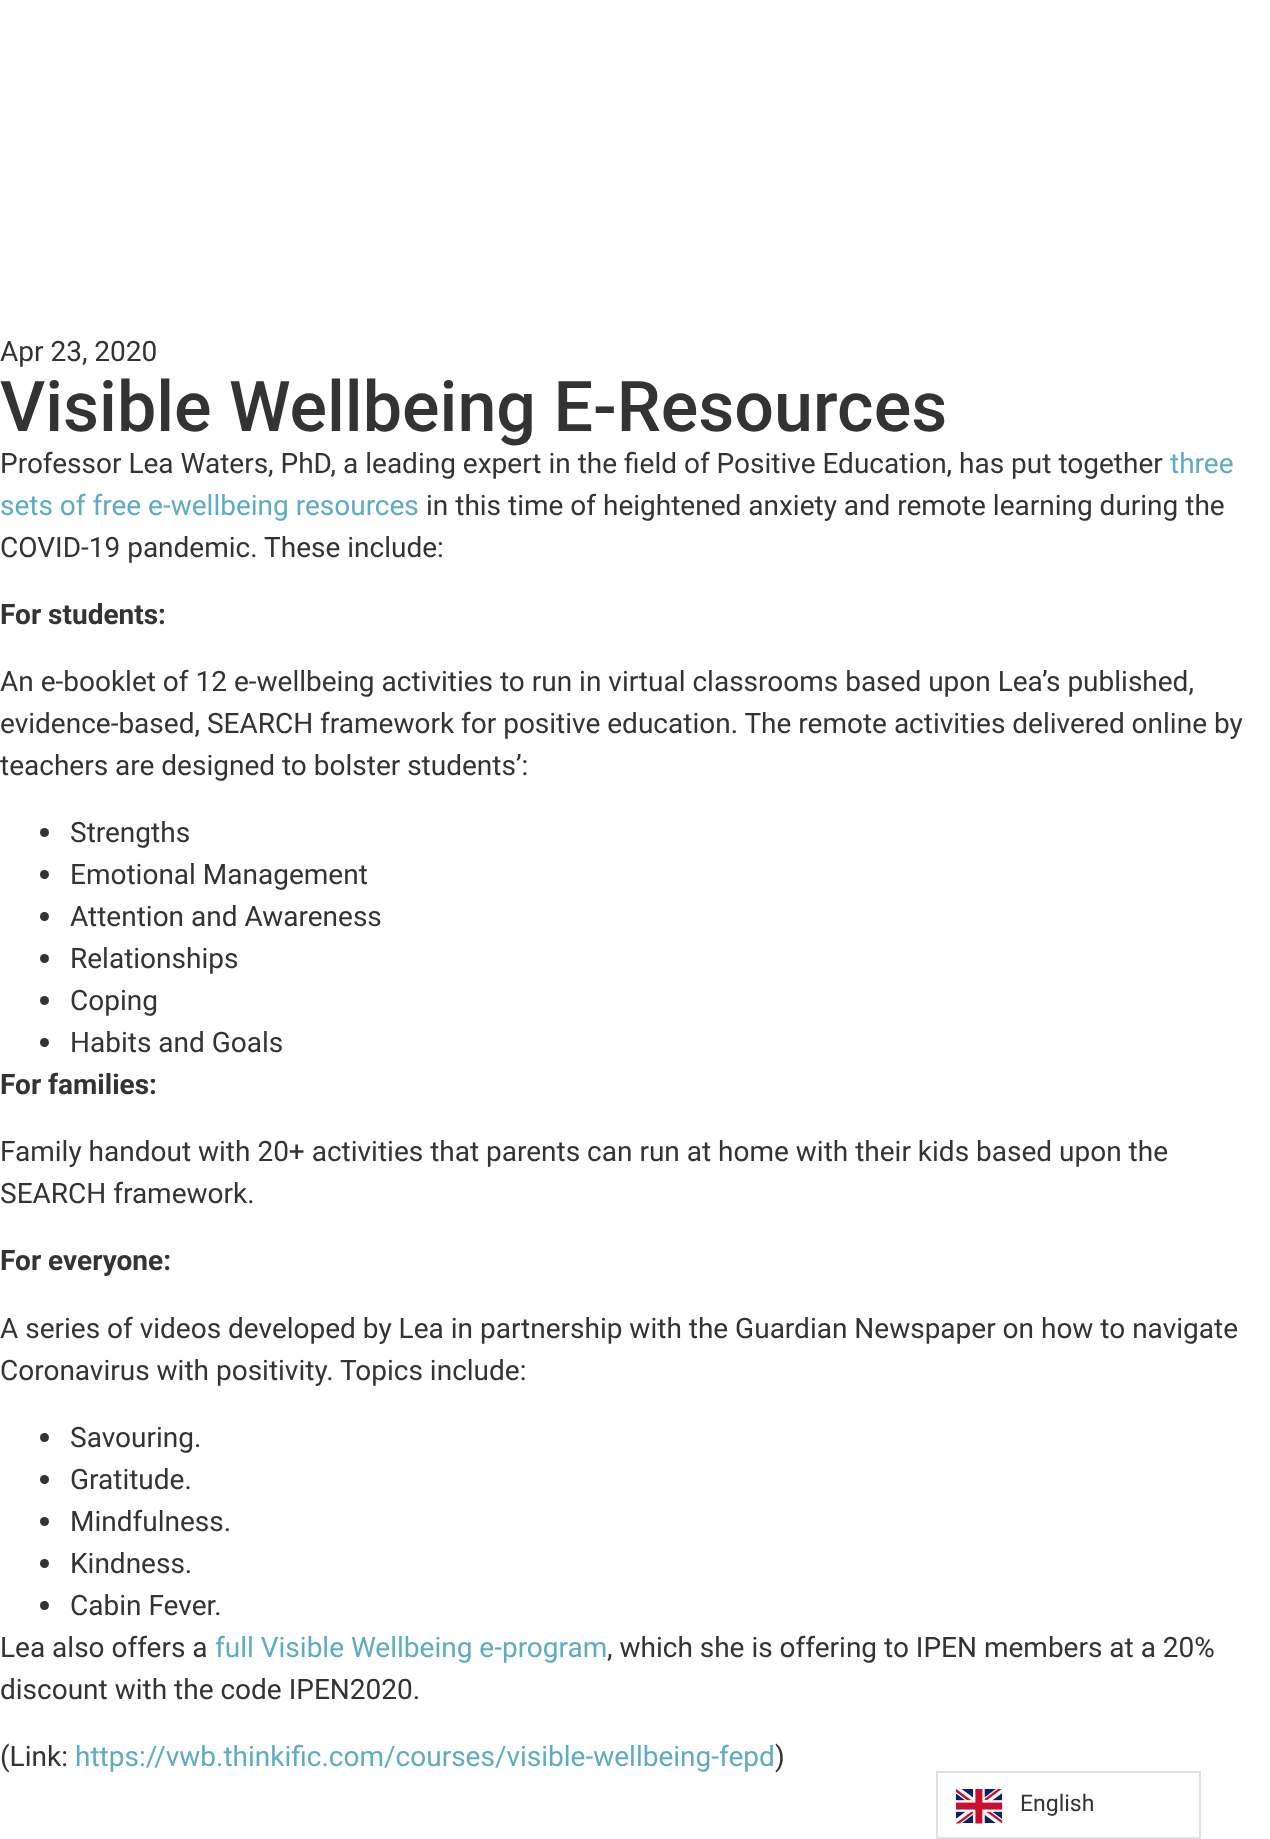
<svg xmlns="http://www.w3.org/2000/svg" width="1270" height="1839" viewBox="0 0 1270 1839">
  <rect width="100%" height="100%" fill="rgb(255,255,255)"/>
  <text x="0" y="361" font-family="Roboto" font-size="28" fill="rgb(51,51,51)">Apr 23, 2020</text>
  <text x="0" y="431" font-family="Roboto" font-size="70" font-weight="500" fill="rgb(51,51,51)">Visible Wellbeing E-Resources</text>
  <text x="0" y="473" font-family="Roboto" font-size="28" fill="rgb(51,51,51)">Professor Lea Waters, PhD, a leading expert in the field of Positive Education, has put together</text>
  <g font-family="Roboto" font-size="28" fill="rgb(94,171,196)">
    <text x="1170" y="473">three</text>
    <text x="0" y="515">sets of free e-wellbeing resources</text>
  </g>
  <g font-family="Roboto" font-size="28" fill="rgb(51,51,51)">
    <text x="426" y="515">in this time of heightened anxiety and remote learning during the</text>
    <text x="0" y="557">COVID-19 pandemic. These include:</text>
  </g>
  <text x="0" y="624" font-family="Roboto" font-size="28" font-weight="bold" fill="rgb(51,51,51)">For students:</text>
  <g font-family="Roboto" font-size="28" fill="rgb(51,51,51)">
    <text>
      <tspan x="0" y="691">An e-booklet of 12 e-wellbeing activities to run in virtual classrooms based upon Lea’s published,</tspan>
      <tspan x="0" y="733">evidence-based, SEARCH framework for positive education. The remote activities delivered online by</tspan>
      <tspan x="0" y="775">teachers are designed to bolster students’:</tspan>
    </text>
  </g>
  <circle cx="44.5" cy="832.5" r="4.5" fill="rgb(51,51,51)"/>
  <text x="70" y="842" font-family="Roboto" font-size="28" fill="rgb(51,51,51)">Strengths</text>
  <circle cx="44.5" cy="874.5" r="4.5" fill="rgb(51,51,51)"/>
  <text x="70" y="884" font-family="Roboto" font-size="28" fill="rgb(51,51,51)">Emotional Management</text>
  <circle cx="44.5" cy="916.5" r="4.5" fill="rgb(51,51,51)"/>
  <text x="70" y="926" font-family="Roboto" font-size="28" fill="rgb(51,51,51)">Attention and Awareness</text>
  <circle cx="44.5" cy="958.5" r="4.5" fill="rgb(51,51,51)"/>
  <text x="70" y="968" font-family="Roboto" font-size="28" fill="rgb(51,51,51)">Relationships</text>
  <circle cx="44.5" cy="1000.5" r="4.5" fill="rgb(51,51,51)"/>
  <text x="70" y="1010" font-family="Roboto" font-size="28" fill="rgb(51,51,51)">Coping</text>
  <circle cx="44.5" cy="1042.5" r="4.5" fill="rgb(51,51,51)"/>
  <text x="70" y="1052" font-family="Roboto" font-size="28" fill="rgb(51,51,51)">Habits and Goals</text>
  <text x="0" y="1094" font-family="Roboto" font-size="28" font-weight="bold" fill="rgb(51,51,51)">For families:</text>
  <g font-family="Roboto" font-size="28" fill="rgb(51,51,51)">
    <text>
      <tspan x="0" y="1161">Family handout with 20+ activities that parents can run at home with their kids based upon the</tspan>
      <tspan x="0" y="1203">SEARCH framework.</tspan>
    </text>
  </g>
  <text x="0" y="1270" font-family="Roboto" font-size="28" font-weight="bold" fill="rgb(51,51,51)">For everyone:</text>
  <g font-family="Roboto" font-size="28" fill="rgb(51,51,51)">
    <text>
      <tspan x="0" y="1338">A series of videos developed by Lea in partnership with the Guardian Newspaper on how to navigate</tspan>
      <tspan x="0" y="1380">Coronavirus with positivity. Topics include:</tspan>
    </text>
  </g>
  <circle cx="44.5" cy="1437.5" r="4.5" fill="rgb(51,51,51)"/>
  <text x="70" y="1447" font-family="Roboto" font-size="28" fill="rgb(51,51,51)">Savouring.</text>
  <circle cx="44.5" cy="1479.5" r="4.5" fill="rgb(51,51,51)"/>
  <text x="70" y="1489" font-family="Roboto" font-size="28" fill="rgb(51,51,51)">Gratitude.</text>
  <circle cx="44.5" cy="1521.5" r="4.5" fill="rgb(51,51,51)"/>
  <text x="70" y="1531" font-family="Roboto" font-size="28" fill="rgb(51,51,51)">Mindfulness.</text>
  <circle cx="44.5" cy="1563.5" r="4.5" fill="rgb(51,51,51)"/>
  <text x="70" y="1573" font-family="Roboto" font-size="28" fill="rgb(51,51,51)">Kindness.</text>
  <circle cx="44.5" cy="1605.5" r="4.5" fill="rgb(51,51,51)"/>
  <g font-family="Roboto" font-size="28" fill="rgb(51,51,51)">
    <text x="70" y="1615">Cabin Fever.</text>
    <text x="0" y="1657">Lea also offers a</text>
  </g>
  <text x="215" y="1657" font-family="Roboto" font-size="28" fill="rgb(94,171,196)">full Visible Wellbeing e-program</text>
  <g font-family="Roboto" font-size="28" fill="rgb(51,51,51)">
    <text x="607" y="1657">, which she is offering to IPEN members at a 20%</text>
    <text x="0" y="1699">discount with the code IPEN2020.</text>
    <text x="0" y="1766">(Link:</text>
  </g>
  <text x="75" y="1766" font-family="Roboto" font-size="28" fill="rgb(94,171,196)">https://vwb.thinkific.com/courses/visible-wellbeing-fepd</text>
  <text x="775" y="1766" font-family="Roboto" font-size="28" fill="rgb(51,51,51)">)</text>
  <rect x="937" y="1772" width="263" height="66" fill="none" stroke="rgb(224,224,224)" stroke-width="2"/>
  <image x="956" y="1789" width="47" height="35" href="pic1.png"/>
  <text x="1020" y="1811" font-family="Roboto" font-size="23" fill="rgb(51,51,51)">English</text>
</svg>
